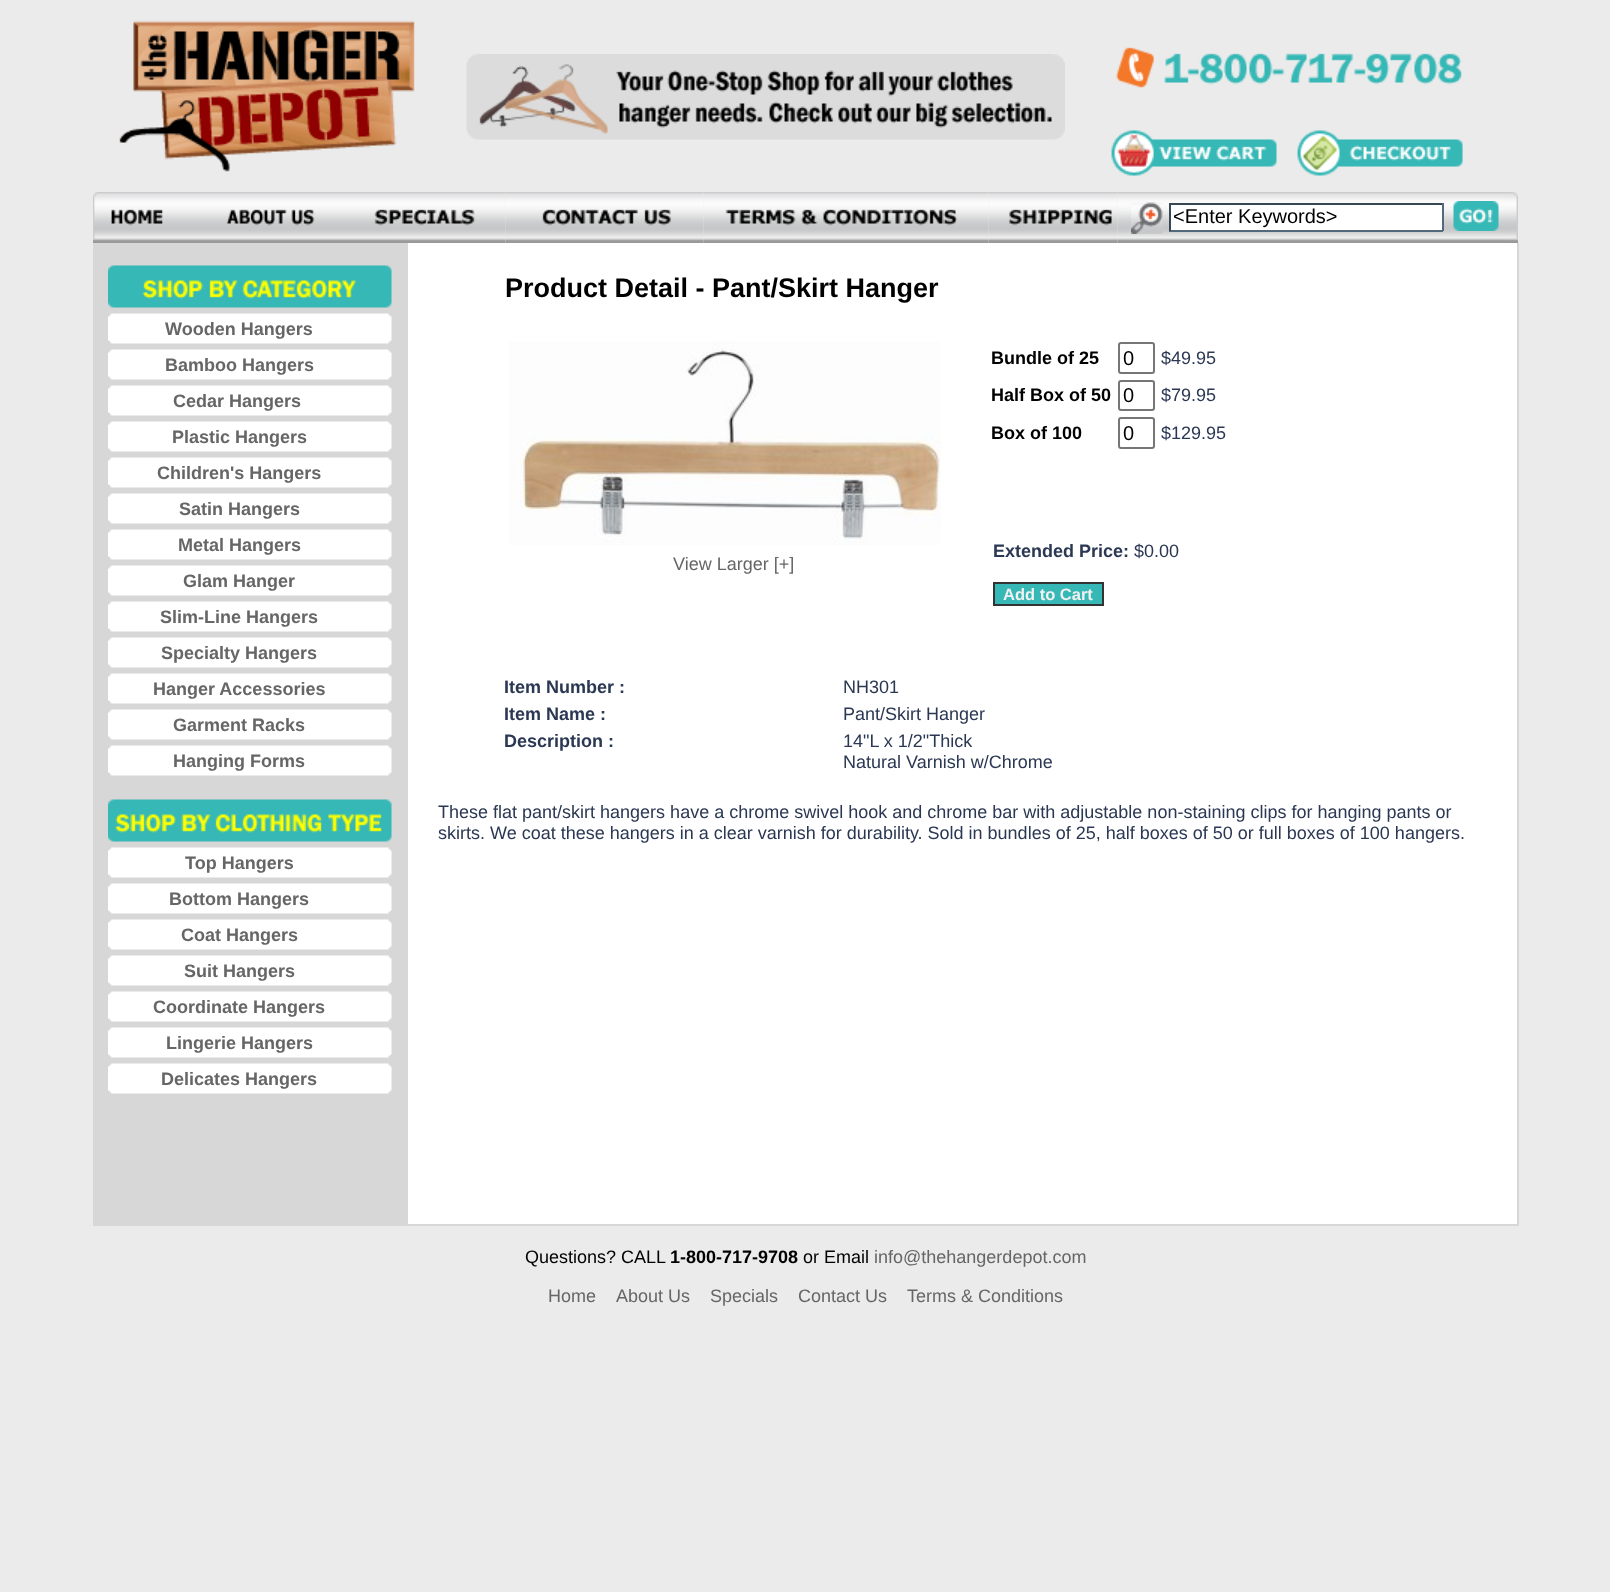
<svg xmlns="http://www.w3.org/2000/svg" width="1610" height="1592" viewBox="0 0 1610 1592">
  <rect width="100%" height="100%" fill="rgb(235,235,235)"/>
  <image x="119" y="20" width="296" height="152" href="pic1.png"/>
  <image x="466" y="54" width="599" height="86" href="pic2.png"/>
  <image x="1115" y="47" width="347" height="41" href="pic3.png"/>
  <image x="1111" y="130" width="166" height="46" href="pic4.png"/>
  <image x="1297" y="130" width="166" height="46" href="pic5.png"/>
  <image x="93" y="192" width="105" height="51" href="pic6.png"/>
  <image x="198" y="192" width="150" height="51" href="pic7.png"/>
  <image x="348" y="192" width="158" height="51" href="pic8.png"/>
  <image x="505" y="192" width="199" height="51" href="pic9.png"/>
  <image x="703" y="192" width="286" height="51" href="pic10.png"/>
  <image x="1117" y="192" width="386" height="51" href="pic12.png"/>
  <image x="988" y="192" width="130" height="51" href="pic11.png"/>
  <image x="1131" y="202" width="32" height="32" href="pic13.png"/>
  <rect x="1171" y="205" width="271" height="25" fill="rgb(255,255,255)"/>
  <rect x="1169" y="203" width="274" height="2" fill="rgb(55,71,83)"/>
  <rect x="1442" y="203" width="2" height="28" fill="rgb(83,106,124)"/>
  <rect x="1169" y="230" width="274" height="2" fill="rgb(83,106,124)"/>
  <rect x="1169" y="203" width="2" height="28" fill="rgb(55,71,83)"/>
  <text x="1173" y="223" font-family="Liberation Sans" font-size="20" fill="rgb(0,0,0)">&lt;Enter Keywords&gt;</text>
  <image x="1453" y="201" width="46" height="30" href="pic14.png"/>
  <image x="1503" y="192" width="15" height="51" href="pic15.png"/>
  <rect x="93" y="243" width="315" height="983" fill="rgb(215,215,215)"/>
  <image x="108" y="265" width="284" height="43" href="pic16.png"/>
  <image x="108" y="313" width="284" height="31" href="pic17.png"/>
  <text x="165" y="335" font-family="Liberation Sans" font-size="18" font-weight="bold" fill="rgb(102,102,102)">Wooden Hangers</text>
  <image x="108" y="349" width="284" height="31" href="pic17.png"/>
  <text x="165" y="371" font-family="Liberation Sans" font-size="18" font-weight="bold" fill="rgb(102,102,102)">Bamboo Hangers</text>
  <image x="108" y="385" width="284" height="31" href="pic17.png"/>
  <text x="173" y="407" font-family="Liberation Sans" font-size="18" font-weight="bold" fill="rgb(102,102,102)">Cedar Hangers</text>
  <image x="108" y="421" width="284" height="31" href="pic17.png"/>
  <text x="172" y="443" font-family="Liberation Sans" font-size="18" font-weight="bold" fill="rgb(102,102,102)">Plastic Hangers</text>
  <image x="108" y="457" width="284" height="31" href="pic17.png"/>
  <text x="157" y="479" font-family="Liberation Sans" font-size="18" font-weight="bold" fill="rgb(102,102,102)">Children's Hangers</text>
  <image x="108" y="493" width="284" height="31" href="pic17.png"/>
  <text x="179" y="515" font-family="Liberation Sans" font-size="18" font-weight="bold" fill="rgb(102,102,102)">Satin Hangers</text>
  <image x="108" y="529" width="284" height="31" href="pic17.png"/>
  <text x="178" y="551" font-family="Liberation Sans" font-size="18" font-weight="bold" fill="rgb(102,102,102)">Metal Hangers</text>
  <image x="108" y="565" width="284" height="31" href="pic17.png"/>
  <text x="183" y="587" font-family="Liberation Sans" font-size="18" font-weight="bold" fill="rgb(102,102,102)">Glam Hanger</text>
  <image x="108" y="601" width="284" height="31" href="pic17.png"/>
  <text x="160" y="623" font-family="Liberation Sans" font-size="18" font-weight="bold" fill="rgb(102,102,102)">Slim-Line Hangers</text>
  <image x="108" y="637" width="284" height="31" href="pic17.png"/>
  <text x="161" y="659" font-family="Liberation Sans" font-size="18" font-weight="bold" fill="rgb(102,102,102)">Specialty Hangers</text>
  <image x="108" y="673" width="284" height="31" href="pic17.png"/>
  <text x="153" y="695" font-family="Liberation Sans" font-size="18" font-weight="bold" fill="rgb(102,102,102)">Hanger Accessories</text>
  <image x="108" y="709" width="284" height="31" href="pic17.png"/>
  <text x="173" y="731" font-family="Liberation Sans" font-size="18" font-weight="bold" fill="rgb(102,102,102)">Garment Racks</text>
  <image x="108" y="745" width="284" height="31" href="pic17.png"/>
  <text x="173" y="767" font-family="Liberation Sans" font-size="18" font-weight="bold" fill="rgb(102,102,102)">Hanging Forms</text>
  <image x="108" y="799" width="284" height="43" href="pic18.png"/>
  <image x="108" y="847" width="284" height="31" href="pic17.png"/>
  <text x="185" y="869" font-family="Liberation Sans" font-size="18" font-weight="bold" fill="rgb(102,102,102)">Top Hangers</text>
  <image x="108" y="883" width="284" height="31" href="pic17.png"/>
  <text x="169" y="905" font-family="Liberation Sans" font-size="18" font-weight="bold" fill="rgb(102,102,102)">Bottom Hangers</text>
  <image x="108" y="919" width="284" height="31" href="pic17.png"/>
  <text x="181" y="941" font-family="Liberation Sans" font-size="18" font-weight="bold" fill="rgb(102,102,102)">Coat Hangers</text>
  <image x="108" y="955" width="284" height="31" href="pic17.png"/>
  <text x="184" y="977" font-family="Liberation Sans" font-size="18" font-weight="bold" fill="rgb(102,102,102)">Suit Hangers</text>
  <image x="108" y="991" width="284" height="31" href="pic17.png"/>
  <text x="153" y="1013" font-family="Liberation Sans" font-size="18" font-weight="bold" fill="rgb(102,102,102)">Coordinate Hangers</text>
  <image x="108" y="1027" width="284" height="31" href="pic17.png"/>
  <text x="166" y="1049" font-family="Liberation Sans" font-size="18" font-weight="bold" fill="rgb(102,102,102)">Lingerie Hangers</text>
  <image x="108" y="1063" width="284" height="31" href="pic17.png"/>
  <text x="161" y="1085" font-family="Liberation Sans" font-size="18" font-weight="bold" fill="rgb(102,102,102)">Delicates Hangers</text>
  <rect x="408" y="243" width="1109" height="981" fill="rgb(255,255,255)"/>
  <rect x="1517" y="243" width="2" height="983" fill="rgb(215,215,215)"/>
  <rect x="408" y="1224" width="1110" height="2" fill="rgb(215,215,215)"/>
  <text x="505" y="297" font-family="Liberation Sans" font-size="27" font-weight="bold" fill="rgb(0,0,0)">Product Detail - Pant/Skirt Hanger</text>
  <image x="509" y="341" width="432" height="204" href="pic19.png"/>
  <text x="673" y="570" font-family="Liberation Sans" font-size="18" fill="rgb(102,102,102)">View Larger [+]</text>
  <text x="991" y="364" font-family="Liberation Sans" font-size="18" font-weight="bold" fill="rgb(0,0,0)">Bundle of 25</text>
  <rect x="1119" y="343" width="35" height="30" rx="2" fill="none" stroke="rgb(118,118,118)" stroke-width="2"/>
  <text x="1123" y="365" font-family="Liberation Sans" font-size="20" fill="rgb(0,0,0)">0</text>
  <text x="1161" y="364" font-family="Liberation Sans" font-size="18" fill="rgb(43,56,83)">$49.95</text>
  <text x="991" y="401" font-family="Liberation Sans" font-size="18" font-weight="bold" fill="rgb(0,0,0)">Half Box of 50</text>
  <rect x="1119" y="381" width="35" height="29" rx="2" fill="none" stroke="rgb(118,118,118)" stroke-width="2"/>
  <text x="1123" y="402" font-family="Liberation Sans" font-size="20" fill="rgb(0,0,0)">0</text>
  <text x="1161" y="401" font-family="Liberation Sans" font-size="18" fill="rgb(43,56,83)">$79.95</text>
  <text x="991" y="439" font-family="Liberation Sans" font-size="18" font-weight="bold" fill="rgb(0,0,0)">Box of 100</text>
  <rect x="1119" y="418" width="35" height="30" rx="2" fill="none" stroke="rgb(118,118,118)" stroke-width="2"/>
  <text x="1123" y="440" font-family="Liberation Sans" font-size="20" fill="rgb(0,0,0)">0</text>
  <text x="1161" y="439" font-family="Liberation Sans" font-size="18" fill="rgb(43,56,83)">$129.95</text>
  <text x="993" y="557" font-family="Liberation Sans" font-size="18" font-weight="bold" fill="rgb(43,56,83)">Extended Price:</text>
  <text x="1134" y="557" font-family="Liberation Sans" font-size="18" fill="rgb(43,56,83)">$0.00</text>
  <rect x="994" y="583" width="109" height="22" fill="rgb(54,184,182)" stroke="rgb(51,51,51)" stroke-width="2"/>
  <text x="1003" y="600" font-family="Liberation Sans" font-size="16.5" font-weight="bold" fill="rgb(241,241,241)">Add to Cart</text>
  <text x="504" y="693" font-family="Liberation Sans" font-size="18" font-weight="bold" fill="rgb(43,56,83)">Item Number :</text>
  <text x="843" y="693" font-family="Liberation Sans" font-size="18" fill="rgb(43,56,83)">NH301</text>
  <text x="504" y="720" font-family="Liberation Sans" font-size="18" font-weight="bold" fill="rgb(43,56,83)">Item Name :</text>
  <text x="843" y="720" font-family="Liberation Sans" font-size="18" fill="rgb(43,56,83)">Pant/Skirt Hanger</text>
  <text x="504" y="747" font-family="Liberation Sans" font-size="18" font-weight="bold" fill="rgb(43,56,83)">Description :</text>
  <g font-family="Liberation Sans" font-size="18" fill="rgb(43,56,83)">
    <text>
      <tspan x="843" y="747">14"L x 1/2"Thick</tspan>
      <tspan x="843" y="768">Natural Varnish w/Chrome</tspan>
    </text>
    <text>
      <tspan x="438" y="818">These flat pant/skirt hangers have a chrome swivel hook and chrome bar with adjustable non-staining clips for hanging pants or</tspan>
      <tspan x="438" y="839">skirts. We coat these hangers in a clear varnish for durability. Sold in bundles of 25, half boxes of 50 or full boxes of 100 hangers.</tspan>
    </text>
  </g>
  <text x="525" y="1263" font-family="Liberation Sans" font-size="18" fill="rgb(0,0,0)">Questions? CALL</text>
  <text x="670" y="1263" font-family="Liberation Sans" font-size="18" font-weight="bold" fill="rgb(0,0,0)">1-800-717-9708</text>
  <text x="803" y="1263" font-family="Liberation Sans" font-size="18" fill="rgb(0,0,0)">or Email</text>
  <g font-family="Liberation Sans" font-size="18" fill="rgb(102,102,102)">
    <text x="874" y="1263">info@thehangerdepot.com</text>
    <text x="548" y="1302">Home</text>
    <text x="616" y="1302">About Us</text>
    <text x="710" y="1302">Specials</text>
    <text x="798" y="1302">Contact Us</text>
    <text x="907" y="1302">Terms &amp; Conditions</text>
  </g>
</svg>
